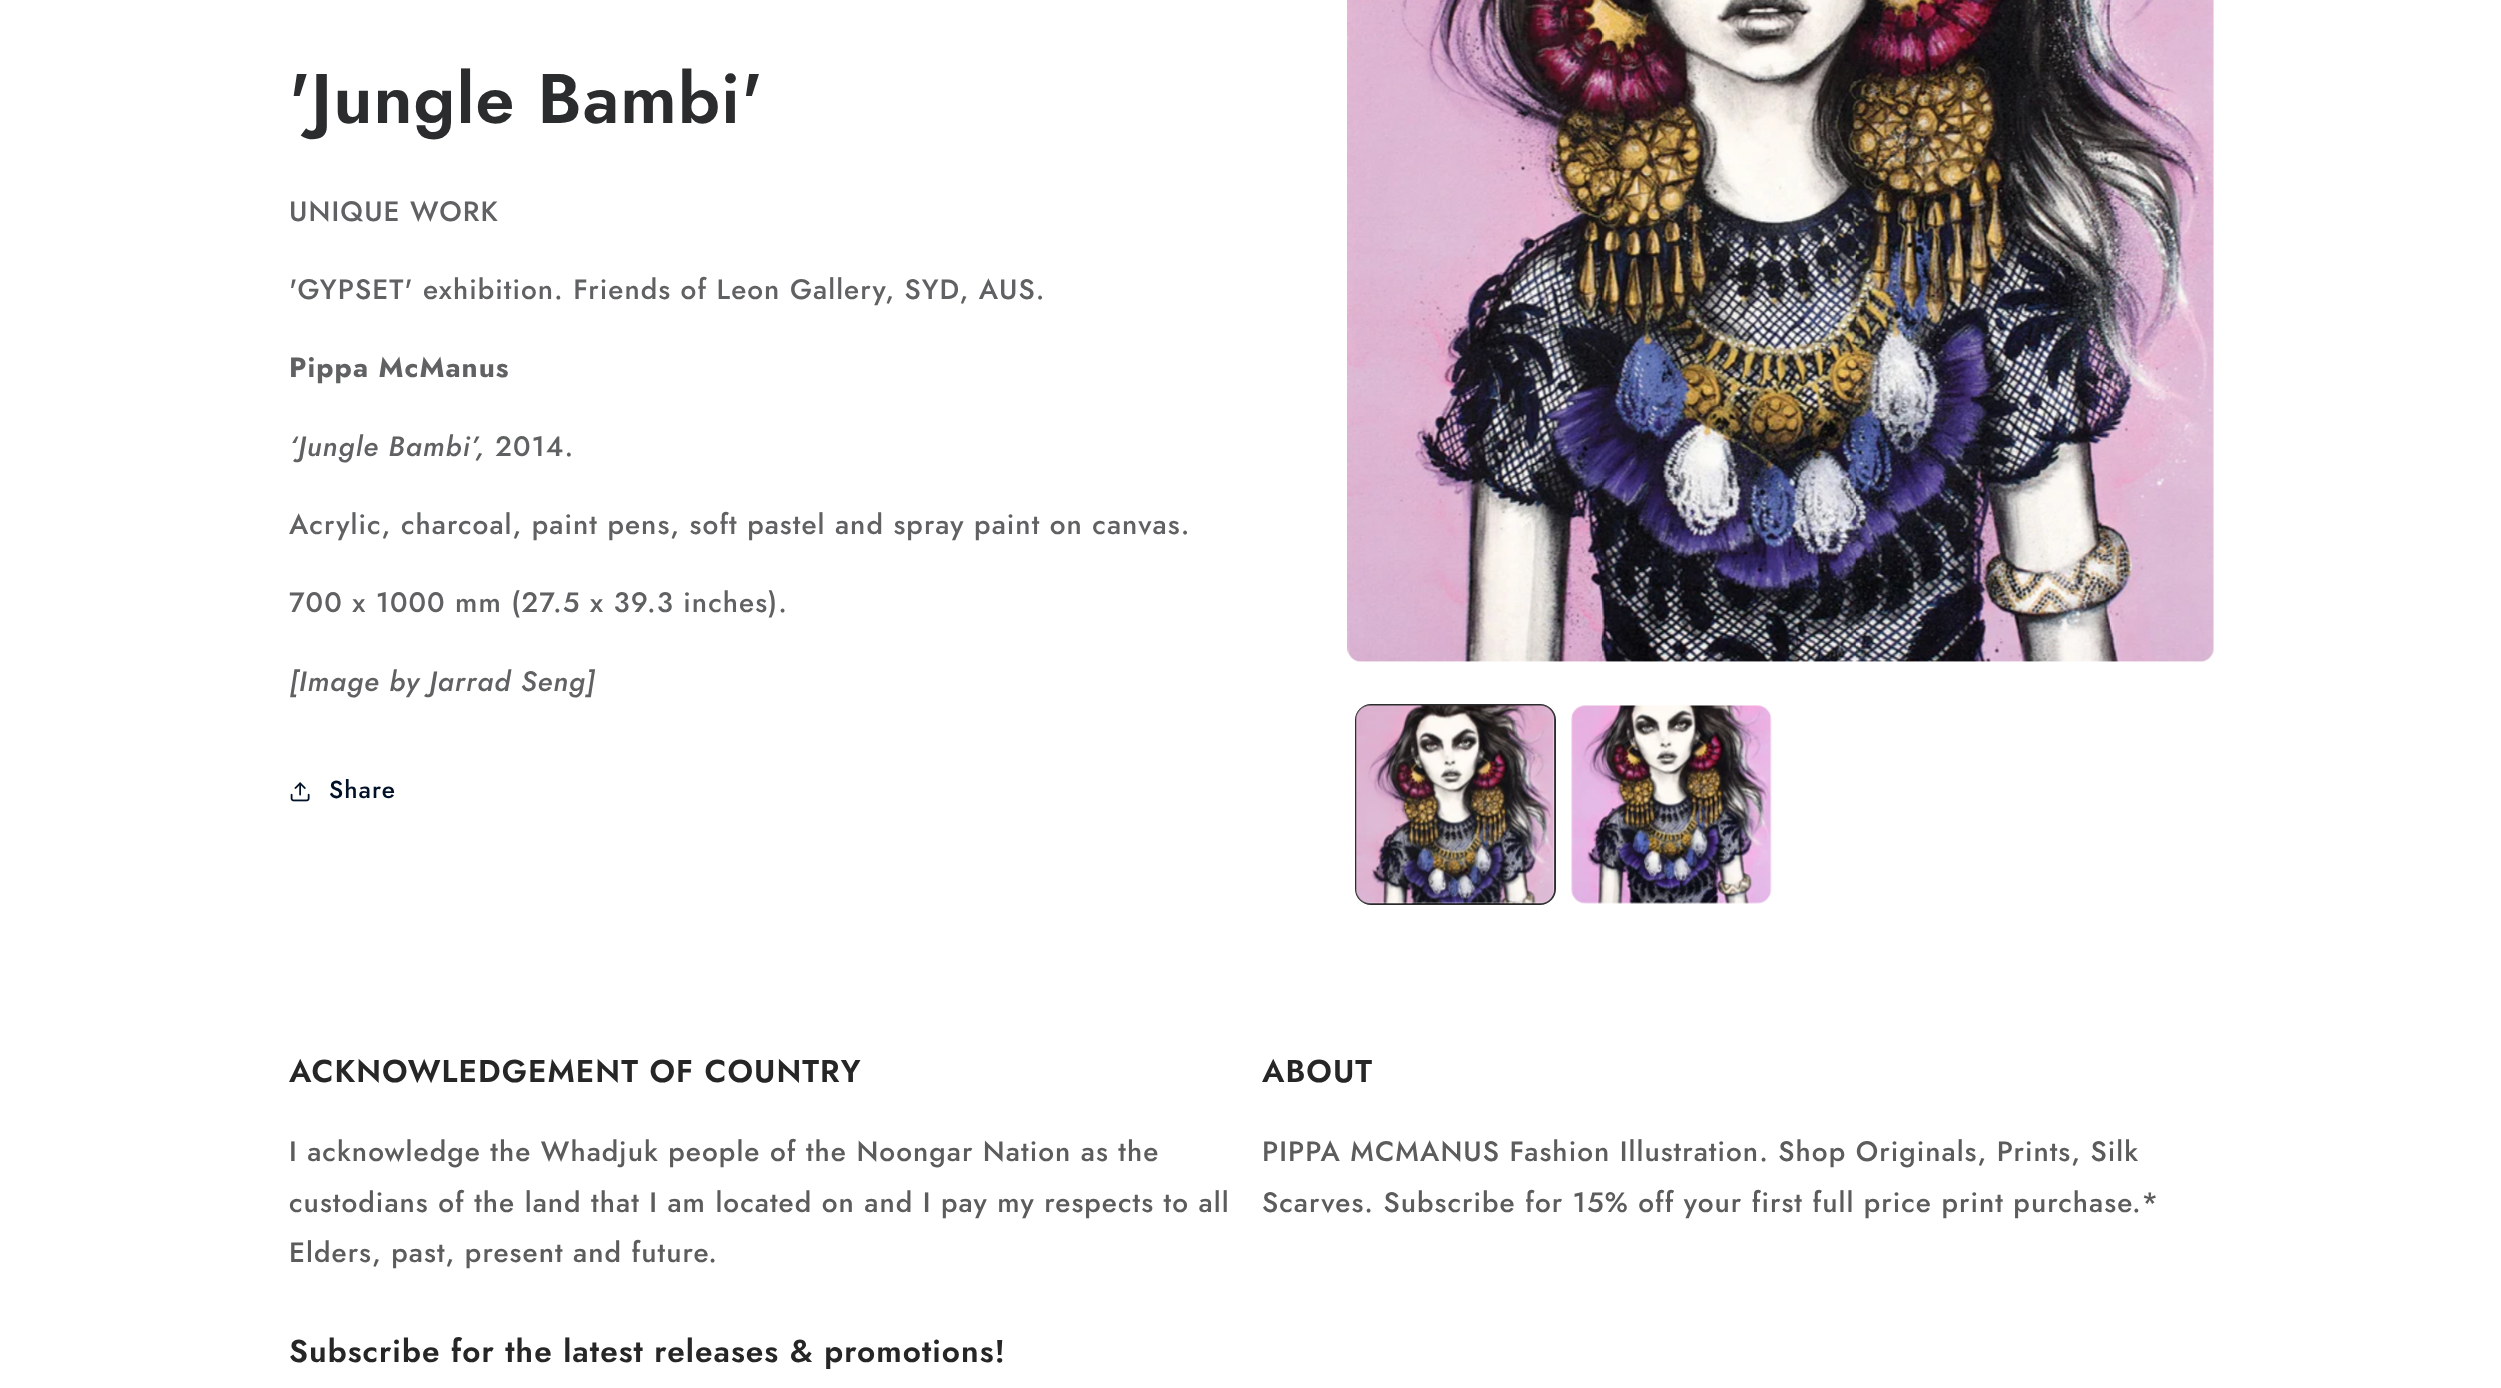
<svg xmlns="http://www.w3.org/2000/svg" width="2501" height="1388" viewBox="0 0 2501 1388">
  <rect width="100%" height="100%" fill="rgb(255,255,255)"/>
  <text x="289" y="123" font-family="Jost" font-size="70" font-weight="600" letter-spacing="1.05" fill="rgb(43,44,45)">'Jungle Bambi'</text>
  <g font-family="Jost" font-size="28" font-weight="500" letter-spacing="1.05" fill="rgb(96,97,98)">
    <text x="289" y="221">UNIQUE WORK</text>
    <text x="289" y="299">'GYPSET' exhibition. Friends of Leon Gallery, SYD, AUS.</text>
  </g>
  <text x="289" y="377" font-family="Jost" font-size="28" font-weight="bold" letter-spacing="1.05" fill="rgb(96,97,98)">Pippa McManus</text>
  <text x="289" y="456" font-family="Jost" font-size="28" font-weight="500" font-style="italic" letter-spacing="1.05" fill="rgb(96,97,98)">‘Jungle Bambi’,</text>
  <g font-family="Jost" font-size="28" font-weight="500" letter-spacing="1.05" fill="rgb(96,97,98)">
    <text x="495" y="456">2014.</text>
    <text x="289" y="534">Acrylic, charcoal, paint pens, soft pastel and spray paint on canvas.</text>
    <text x="289" y="612">700 x 1000 mm (27.5 x 39.3 inches).</text>
  </g>
  <text x="289" y="691" font-family="Jost" font-size="28" font-weight="500" font-style="italic" letter-spacing="1.05" fill="rgb(96,97,98)">[Image by Jarrad Seng]</text>
  <image x="290" y="782" width="20" height="20" href="pic1.png"/>
  <text x="329" y="798" font-family="Jost" font-size="24.5" font-weight="500" letter-spacing="1.05" fill="rgb(0,17,40)">Share</text>
  <image x="1347" y="0" width="867" height="662" href="pic2.png"/>
  <rect x="1356" y="705" width="199" height="199" rx="15" fill="none" stroke="rgb(43,44,45)" stroke-width="2"/>
  <image x="1356" y="705" width="199" height="199" href="pic3.png"/>
  <image x="1571" y="705" width="201" height="199" href="pic4.png"/>
  <text x="289" y="1082" font-family="Jost" font-size="31.5" font-weight="600" letter-spacing="1.05" fill="rgb(38,38,38)">ACKNOWLEDGEMENT OF COUNTRY</text>
  <g font-family="Jost" font-size="28" font-weight="500" letter-spacing="1.05" fill="rgb(92,92,92)">
    <text>
      <tspan x="289" y="1161">I acknowledge the Whadjuk people of the Noongar Nation as the</tspan>
      <tspan x="289" y="1212">custodians of the land that I am located on and I pay my respects to all</tspan>
      <tspan x="289" y="1262">Elders, past, present and future.</tspan>
    </text>
  </g>
  <text x="1262" y="1082" font-family="Jost" font-size="31.5" font-weight="600" letter-spacing="1.05" fill="rgb(38,38,38)">ABOUT</text>
  <g font-family="Jost" font-size="28" font-weight="500" letter-spacing="1.05" fill="rgb(92,92,92)">
    <text>
      <tspan x="1262" y="1161">PIPPA MCMANUS Fashion Illustration. Shop Originals, Prints, Silk</tspan>
      <tspan x="1262" y="1212">Scarves. Subscribe for 15% off your first full price print purchase.*</tspan>
    </text>
  </g>
  <text x="289" y="1362" font-family="Jost" font-size="31.5" font-weight="600" letter-spacing="1.05" fill="rgb(38,38,38)">Subscribe for the latest releases &amp; promotions!</text>
</svg>
